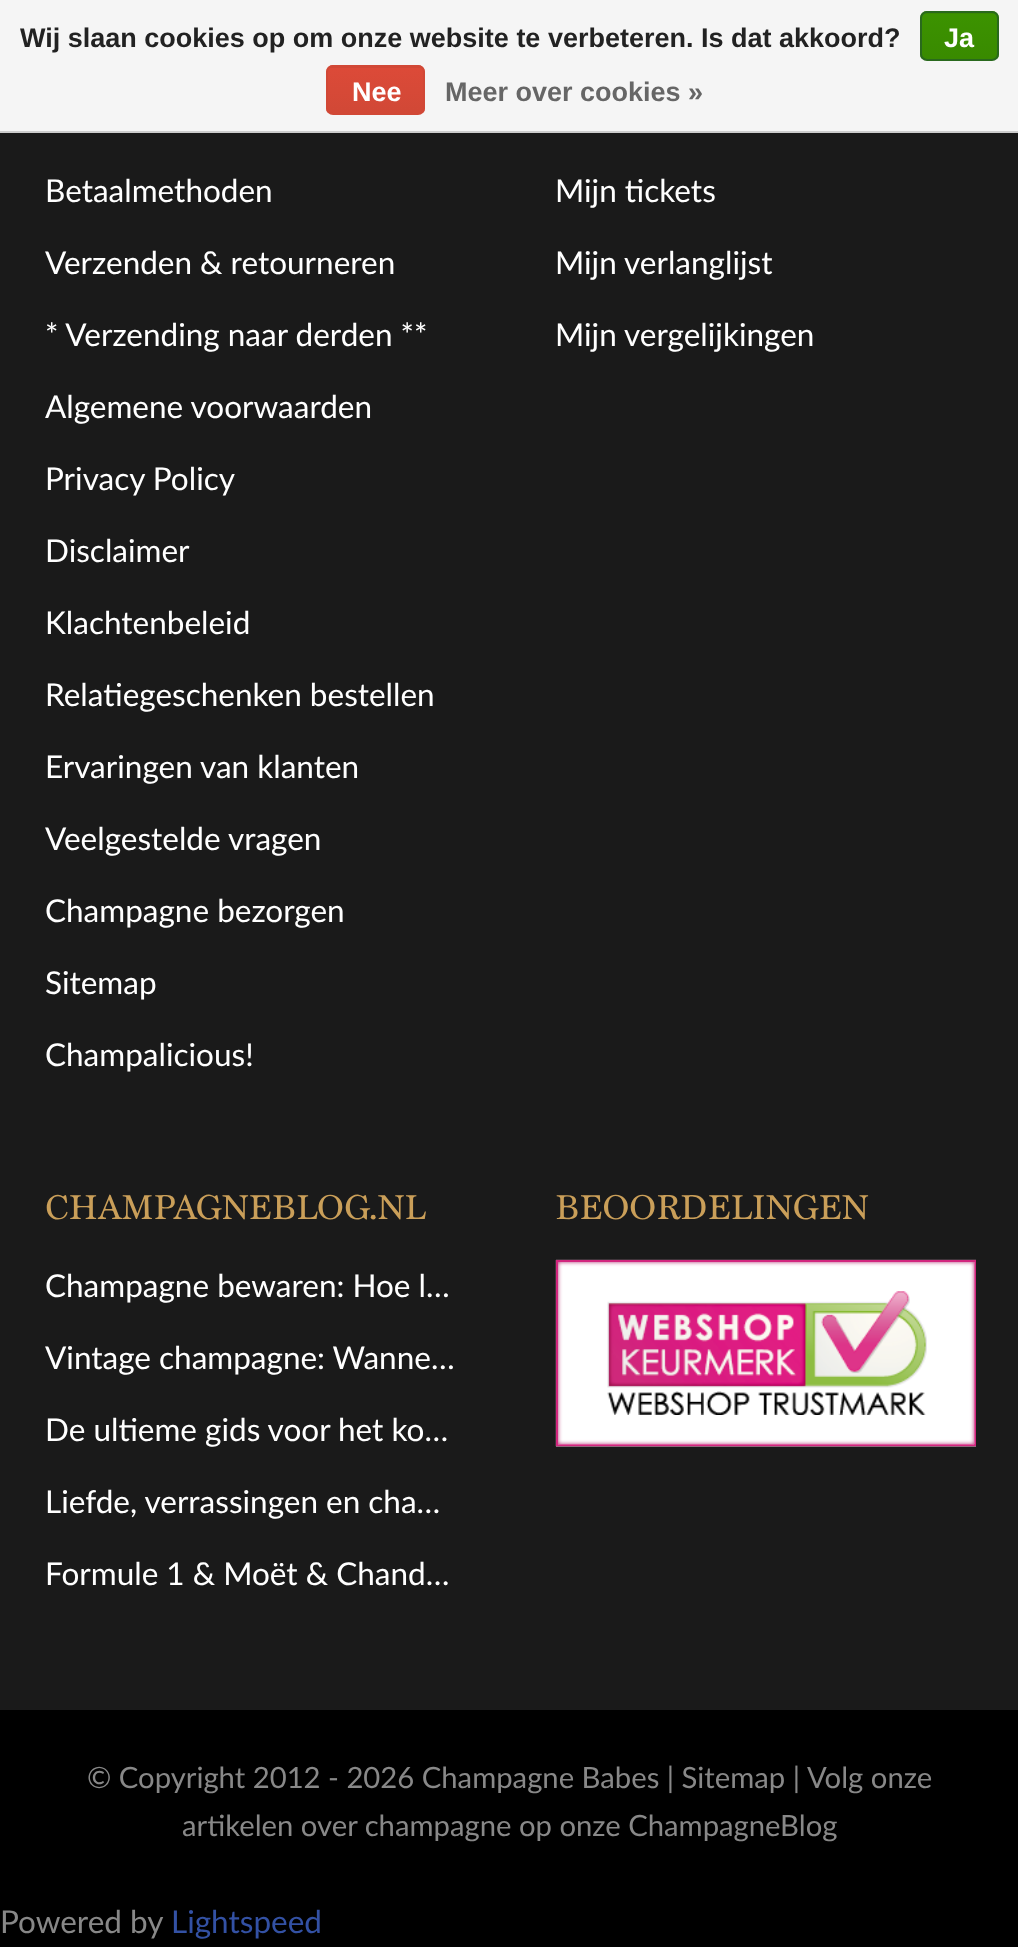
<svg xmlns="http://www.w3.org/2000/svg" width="1018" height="1947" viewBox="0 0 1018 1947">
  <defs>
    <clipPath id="clip1"><rect x="920" y="11" width="79" height="50" rx="7"/></clipPath>
    <linearGradient id="g1" gradientUnits="userSpaceOnUse" x1="960" y1="-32" x2="960" y2="14"><stop offset="0" stop-color="rgb(60,147,0)"/><stop offset="1" stop-color="rgb(57,138,0)"/></linearGradient>
    <linearGradient id="g2" gradientUnits="userSpaceOnUse" x1="960" y1="13" x2="960" y2="59"><stop offset="0" stop-color="rgb(60,147,0)"/><stop offset="1" stop-color="rgb(57,138,0)"/></linearGradient>
    <clipPath id="clip2"><rect x="326" y="65" width="99" height="50" rx="7"/></clipPath>
    <linearGradient id="g3" gradientUnits="userSpaceOnUse" x1="376" y1="22" x2="376" y2="68"><stop offset="0" stop-color="rgb(220,74,56)"/><stop offset="1" stop-color="rgb(209,72,54)"/></linearGradient>
    <linearGradient id="g4" gradientUnits="userSpaceOnUse" x1="376" y1="68" x2="376" y2="113"><stop offset="0" stop-color="rgb(220,74,56)"/><stop offset="1" stop-color="rgb(209,72,54)"/></linearGradient>
  </defs>
  <rect width="100%" height="100%" fill="rgb(0,0,0)"/>
  <rect x="0" y="0" width="1018" height="131" fill="rgb(245,245,245)"/>
  <rect x="0" y="131" width="1018" height="2" fill="rgb(204,204,204)"/>
  <text x="20" y="47" font-family="Liberation Sans" font-size="27" font-weight="bold" fill="rgb(34,34,34)">Wij slaan cookies op om onze website te verbeteren. Is dat akkoord?</text>
  <g clip-path="url(#clip1)">
    <rect x="920" y="11" width="79" height="3" fill="url(#g1)"/>
    <rect x="920" y="14" width="79" height="45" fill="url(#g2)"/>
  </g>
  <rect x="921" y="12" width="77" height="48" rx="6" fill="none" stroke="rgb(41,105,29)" stroke-width="2"/>
  <text x="944" y="47" font-family="Liberation Sans" font-size="27" font-weight="bold" fill="rgb(255,255,255)">Ja</text>
  <g clip-path="url(#clip2)">
    <rect x="326" y="65" width="99" height="3" fill="url(#g3)"/>
    <rect x="326" y="68" width="99" height="45" fill="url(#g4)"/>
  </g>
  <rect x="327" y="66" width="97" height="48" rx="6" fill="none" stroke="rgb(209,72,54)" stroke-width="2"/>
  <text x="352" y="101" font-family="Liberation Sans" font-size="27" font-weight="bold" fill="rgb(255,255,255)">Nee</text>
  <text x="445" y="101" font-family="Liberation Sans" font-size="27" font-weight="bold" fill="rgb(102,102,102)">Meer over cookies »</text>
  <rect x="0" y="133" width="1018" height="1577" fill="rgb(26,26,26)"/>
  <g font-family="Lato" font-size="31.5" fill="rgb(255,255,255)">
    <text x="45" y="202">Betaalmethoden</text>
    <text x="45" y="274">Verzenden &amp; retourneren</text>
    <text x="45" y="346">* Verzending naar derden **</text>
    <text x="45" y="418">Algemene voorwaarden</text>
    <text x="45" y="490">Privacy Policy</text>
    <text x="45" y="562">Disclaimer</text>
    <text x="45" y="634">Klachtenbeleid</text>
    <text x="45" y="706">Relatiegeschenken bestellen</text>
    <text x="45" y="778">Ervaringen van klanten</text>
    <text x="45" y="850">Veelgestelde vragen</text>
    <text x="45" y="922">Champagne bezorgen</text>
    <text x="45" y="994">Sitemap</text>
    <text x="45" y="1066">Champalicious!</text>
    <text x="555" y="202">Mijn tickets</text>
    <text x="555" y="274">Mijn verlanglijst</text>
    <text x="555" y="346">Mijn vergelijkingen</text>
  </g>
  <text x="45" y="1219" font-family="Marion" font-size="36" fill="rgb(202,159,89)">CHAMPAGNEBLOG.NL</text>
  <g font-family="Lato" font-size="31.5" fill="rgb(255,255,255)">
    <text x="45" y="1297">Champagne bewaren: Hoe l…</text>
    <text x="45" y="1369">Vintage champagne: Wanne…</text>
    <text x="45" y="1441">De ultieme gids voor het ko…</text>
    <text x="45" y="1513">Liefde, verrassingen en cha…</text>
    <text x="45" y="1585">Formule 1 &amp; Moët &amp; Chand…</text>
  </g>
  <text x="555" y="1219" font-family="Marion" font-size="36" fill="rgb(202,159,89)">BEOORDELINGEN</text>
  <image x="555" y="1259" width="421" height="188" href="pic1.png"/>
  <g font-family="Lato" font-size="29.25" fill="rgb(136,136,136)">
    <text x="87" y="1788">© Copyright 2012 - 2026 Champagne Babes | Sitemap |</text>
    <text x="807" y="1788">Volg onze</text>
    <text x="182" y="1836">artikelen over champagne op onze ChampagneBlog</text>
  </g>
  <text x="0" y="1933" font-family="Lato" font-size="31.5" fill="rgb(136,136,136)">Powered by</text>
  <text x="171" y="1933" font-family="Lato" font-size="31.5" fill="rgb(51,81,164)">Lightspeed</text>
</svg>
